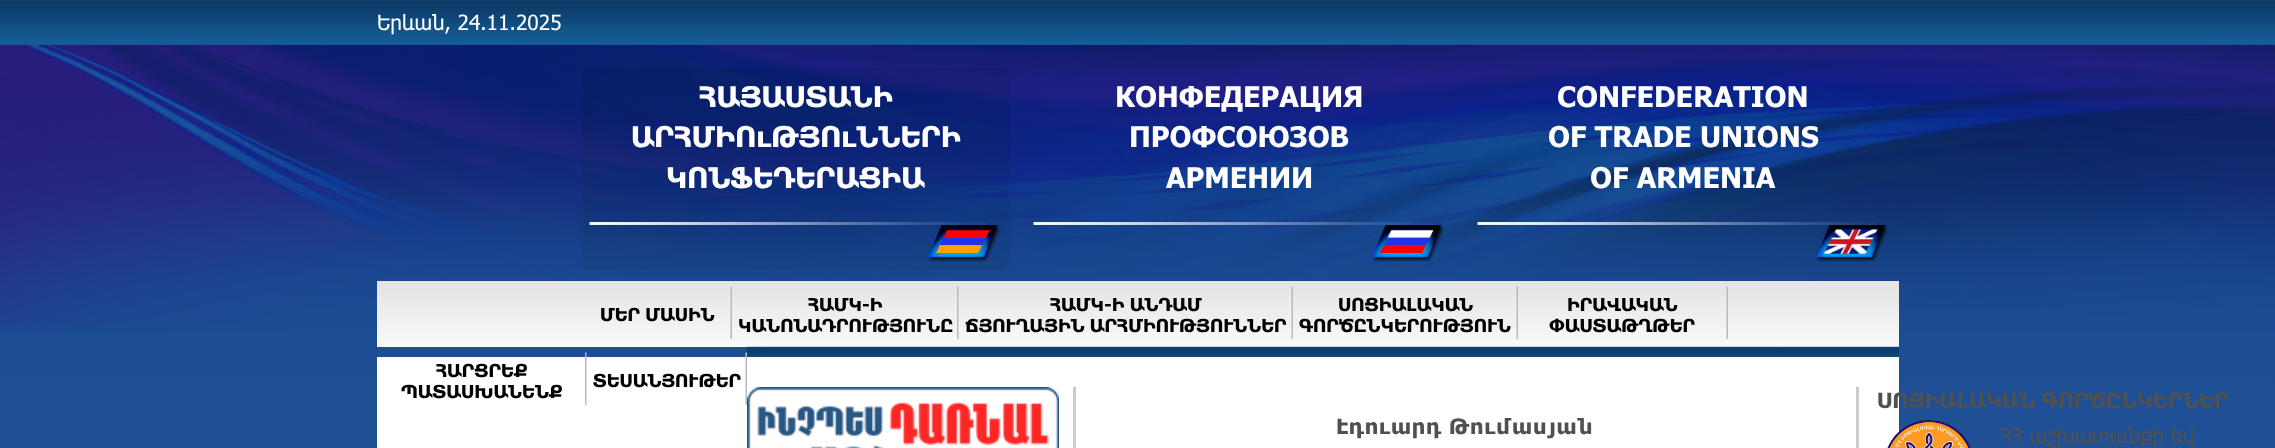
<svg xmlns="http://www.w3.org/2000/svg" width="2275" height="448" viewBox="0 0 2275 448">
  <defs>
    <linearGradient id="g1" gradientUnits="userSpaceOnUse" x1="1138" y1="0" x2="1138" y2="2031"><stop offset="0" stop-color="rgb(20,67,139)"/><stop offset="1" stop-color="rgb(71,125,187)"/></linearGradient>
    <linearGradient id="g2" gradientUnits="userSpaceOnUse" x1="1138" y1="347" x2="1138" y2="281"><stop offset="0" stop-color="rgb(250,250,250)"/><stop offset="1" stop-color="rgb(228,226,226)"/></linearGradient>
  </defs>
  <rect width="100%" height="100%" fill="rgb(255,255,255)"/>
  <rect x="0" y="0" width="2275" height="448" fill="url(#g1)"/>
  <image x="0" y="0" width="2275" height="45" href="pic1.png"/>
  <text x="377" y="30" font-family="Tahoma" font-size="21" fill="rgb(255,255,255)">Երևան, 24.11.2025</text>
  <image x="0" y="45" width="2275" height="288" href="pic2.png"/>
  <rect x="582" y="68" width="428" height="202" rx="8" fill="rgba(5,26,9,0.07)"/>
  <image x="589" y="222" width="399" height="3" href="pic3.png"/>
  <g font-family="Tahoma" font-size="28.5" font-weight="bold" fill="rgb(255,255,255)">
    <text x="699" y="107">ՀԱՅԱՍՏԱՆԻ</text>
    <text x="631" y="147">ԱՐՀՄԻՈւԹՅՈւՆՆԵՐԻ</text>
    <text x="666" y="188">ԿՈՆՖԵԴԵՐԱՑԻԱ</text>
  </g>
  <image x="928" y="225" width="73" height="37" href="pic4.png"/>
  <image x="1033" y="222" width="399" height="3" href="pic5.png"/>
  <g font-family="Tahoma" font-size="28.5" font-weight="bold" fill="rgb(255,255,255)">
    <text x="1115" y="107">КОНФЕДЕРАЦИЯ</text>
    <text x="1129" y="147">ПРОФСОЮЗОВ</text>
    <text x="1166" y="188">АРМЕНИИ</text>
  </g>
  <image x="1372" y="225" width="73" height="37" href="pic6.png"/>
  <image x="1477" y="222" width="399" height="3" href="pic7.png"/>
  <g font-family="Tahoma" font-size="28.5" font-weight="bold" fill="rgb(255,255,255)">
    <text x="1557" y="107">CONFEDERATION</text>
    <text x="1548" y="147">OF TRADE UNIONS</text>
    <text x="1590" y="188">OF ARMENIA</text>
  </g>
  <image x="1816" y="225" width="73" height="37" href="pic8.png"/>
  <rect x="377" y="281" width="1522" height="66" fill="url(#g2)"/>
  <image x="730" y="286" width="2" height="53" href="pic9.png"/>
  <text x="600" y="321" font-family="Tahoma" font-size="18" font-weight="bold" fill="rgb(0,0,0)">ՄԵՐ ՄԱՍԻՆ</text>
  <image x="957" y="286" width="2" height="53" href="pic10.png"/>
  <g font-family="Tahoma" font-size="18" font-weight="bold" fill="rgb(0,0,0)">
    <text x="808" y="311">ՀԱՄԿ-Ի</text>
    <text x="738" y="332">ԿԱՆՈՆԱԴՐՈՒԹՅՈՒՆԸ</text>
  </g>
  <image x="1291" y="286" width="2" height="53" href="pic9.png"/>
  <g font-family="Tahoma" font-size="18" font-weight="bold" fill="rgb(0,0,0)">
    <text x="1050" y="311">ՀԱՄԿ-Ի ԱՆԴԱՄ</text>
    <text x="965" y="332">ՃՅՈՒՂԱՅԻՆ ԱՐՀՄԻՈՒԹՅՈՒՆՆԵՐ</text>
  </g>
  <image x="1516" y="286" width="2" height="53" href="pic9.png"/>
  <g font-family="Tahoma" font-size="18" font-weight="bold" fill="rgb(0,0,0)">
    <text x="1338" y="311">ՍՈՑԻԱԼԱԿԱՆ</text>
    <text x="1299" y="332">ԳՈՐԾԸՆԿԵՐՈՒԹՅՈՒՆ</text>
  </g>
  <image x="1726" y="286" width="2" height="53" href="pic9.png"/>
  <g font-family="Tahoma" font-size="18" font-weight="bold" fill="rgb(0,0,0)">
    <text x="1567" y="311">ԻՐԱՎԱԿԱՆ</text>
    <text x="1549" y="332">ՓԱՍՏԱԹՂԹԵՐ</text>
  </g>
  <rect x="377" y="357" width="1522" height="91" fill="rgb(255,255,255)"/>
  <image x="585" y="352" width="2" height="53" href="pic11.png"/>
  <g font-family="Tahoma" font-size="18" font-weight="bold" fill="rgb(0,0,0)">
    <text x="436" y="377">ՀԱՐՑՐԵՔ</text>
    <text x="401" y="398">ՊԱՏԱՍԽԱՆԵՆՔ</text>
  </g>
  <image x="745" y="352" width="2" height="53" href="pic12.png"/>
  <text x="593" y="387" font-family="Tahoma" font-size="18" font-weight="bold" fill="rgb(0,0,0)">ՏԵՍԱՆՅՈՒԹԵՐ</text>
  <image x="747" y="346" width="1152" height="11" href="pic13.png"/>
  <image x="747" y="387" width="312" height="61" href="pic14.png"/>
  <rect x="1856" y="387" width="3" height="61" fill="rgb(204,204,204)"/>
  <rect x="1073" y="387" width="3" height="61" fill="rgb(204,204,204)"/>
  <text x="1336" y="434" font-family="Tahoma" font-size="21.1" font-weight="bold" letter-spacing="0.75" fill="rgb(80,80,80)">Էդուարդ Թումասյան</text>
  <text x="1877" y="408" font-family="Tahoma" font-size="21.1" font-weight="bold" fill="rgb(80,80,80)">ՍՈՑԻԱԼԱԿԱՆ ԳՈՐԾԸՆԿԵՐՆԵՐ</text>
  <image x="1887" y="420" width="84" height="28" href="pic15.png"/>
  <text x="2001" y="443" font-family="Tahoma" font-size="21" fill="rgb(80,80,80)">ՀՀ աշխատանքի եվ</text>
</svg>
